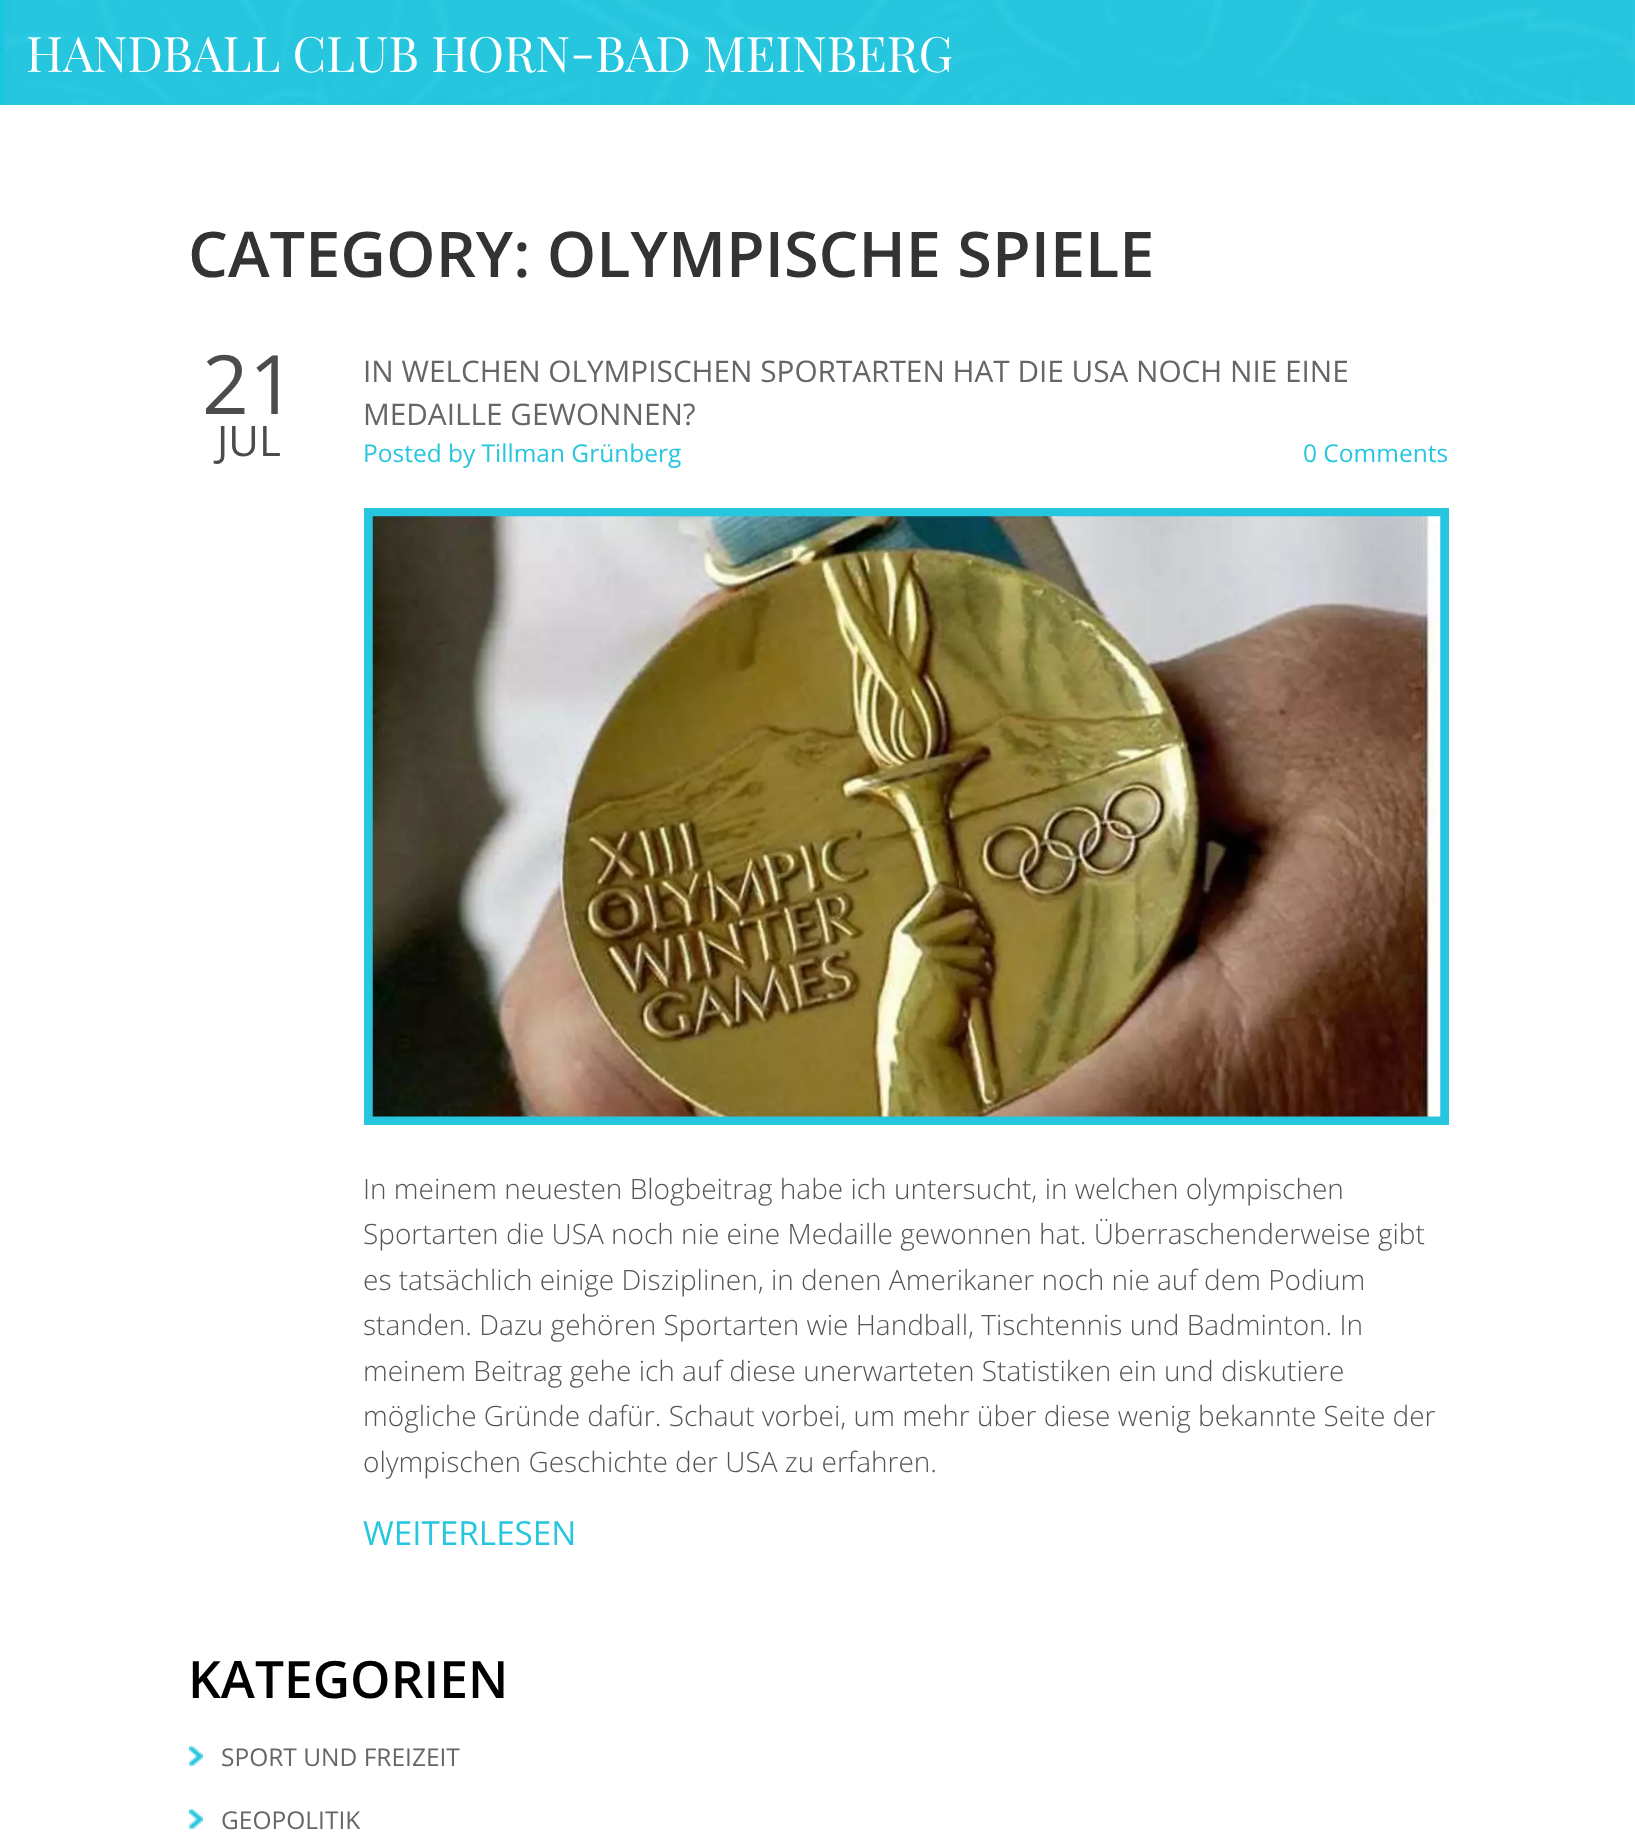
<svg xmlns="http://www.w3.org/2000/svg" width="1635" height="1842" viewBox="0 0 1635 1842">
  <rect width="100%" height="100%" fill="rgb(255,255,255)"/>
  <image x="0" y="0" width="1635" height="105" href="pic1.png"/>
  <text x="26" y="72" font-family="Playfair Display SC" font-size="49" fill="rgb(255,255,255)">HANDBALL CLUB HORN-BAD MEINBERG</text>
  <text x="188" y="277" font-family="Open Sans" font-size="63" font-weight="600" fill="rgb(51,51,51)">CATEGORY: OLYMPISCHE SPIELE</text>
  <text x="202" y="414" font-family="Open Sans" font-size="82" fill="rgb(75,76,76)">21</text>
  <text x="217" y="456" font-family="Open Sans" font-size="42" fill="rgb(75,76,76)">JUL</text>
  <g font-family="Open Sans" font-size="29.75" fill="rgb(102,102,102)">
    <text>
      <tspan x="363" y="382">IN WELCHEN OLYMPISCHEN SPORTARTEN HAT DIE USA NOCH NIE EINE</tspan>
      <tspan x="363" y="425">MEDAILLE GEWONNEN?</tspan>
    </text>
  </g>
  <g font-family="Open Sans" font-size="24.5" fill="rgb(38,198,223)">
    <text x="363" y="462">Posted by Tillman Grünberg</text>
    <text x="1303" y="462">0 Comments</text>
  </g>
  <rect x="368.5" y="512.5" width="1076" height="608" fill="none" stroke="rgb(38,198,223)" stroke-width="9"/>
  <image x="372" y="516" width="1069" height="601" href="pic2.png"/>
  <g font-family="Open Sans" font-size="28" font-weight="300" fill="rgb(85,85,85)">
    <text>
      <tspan x="363" y="1199">In meinem neuesten Blogbeitrag habe ich untersucht, in welchen olympischen</tspan>
      <tspan x="363" y="1244">Sportarten die USA noch nie eine Medaille gewonnen hat. Überraschenderweise gibt</tspan>
      <tspan x="363" y="1290">es tatsächlich einige Disziplinen, in denen Amerikaner noch nie auf dem Podium</tspan>
      <tspan x="363" y="1335">standen. Dazu gehören Sportarten wie Handball, Tischtennis und Badminton. In</tspan>
      <tspan x="363" y="1381">meinem Beitrag gehe ich auf diese unerwarteten Statistiken ein und diskutiere</tspan>
      <tspan x="363" y="1426">mögliche Gründe dafür. Schaut vorbei, um mehr über diese wenig bekannte Seite der</tspan>
      <tspan x="363" y="1472">olympischen Geschichte der USA zu erfahren.</tspan>
    </text>
  </g>
  <text x="363" y="1545" font-family="Open Sans" font-size="33.25" fill="rgb(38,198,223)">WEITERLESEN</text>
  <text x="188" y="1698" font-family="Open Sans" font-size="51.5" font-weight="600" fill="rgb(0,0,0)">KATEGORIEN</text>
  <image x="189" y="1746" width="14" height="20" href="pic3.png"/>
  <text x="221" y="1766" font-family="Open Sans" font-size="24.5" fill="rgb(102,102,102)">SPORT UND FREIZEIT</text>
  <image x="189" y="1809" width="14" height="20" href="pic3.png"/>
  <text x="221" y="1829" font-family="Open Sans" font-size="24.5" fill="rgb(102,102,102)">GEOPOLITIK</text>
</svg>
